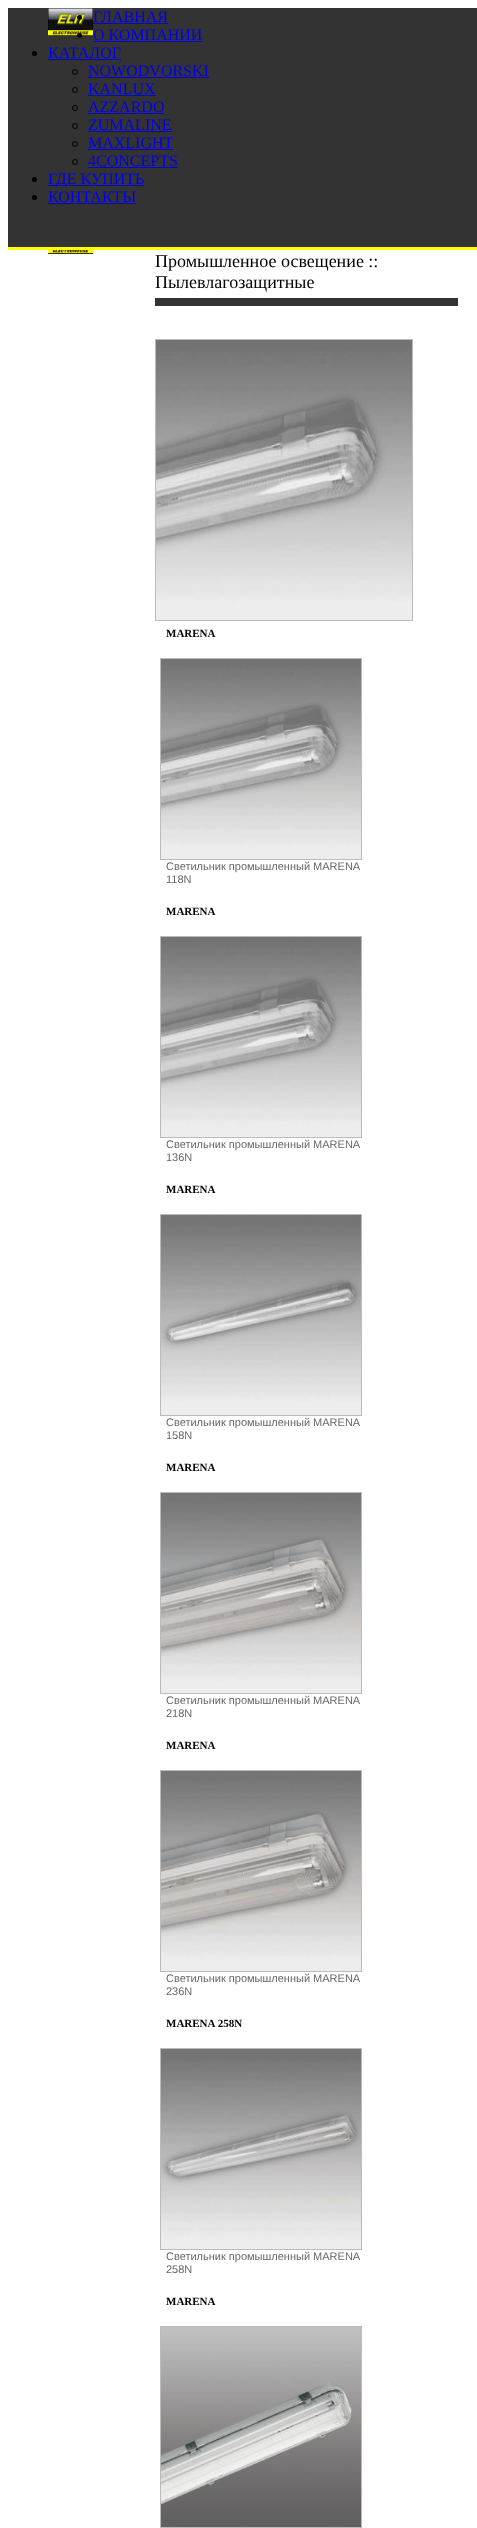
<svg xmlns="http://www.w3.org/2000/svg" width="477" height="2528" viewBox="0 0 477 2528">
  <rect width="100%" height="100%" fill="rgb(255,255,255)"/>
  <rect x="8" y="8" width="469" height="239" fill="rgb(51,51,51)"/>
  <rect x="8" y="247" width="469" height="3" fill="rgb(255,255,0)"/>
  <image x="48" y="8" width="45" height="28" href="pic1.png"/>
  <circle cx="79.5" cy="17.5" r="2.5" fill="rgb(0,0,0)"/>
  <text x="93" y="22" font-family="Liberation Serif" font-size="16" fill="rgb(0,0,238)">ГЛАВНАЯ</text>
  <rect x="93" y="23" width="75" height="1" fill="rgb(0,0,238)"/>
  <circle cx="79.5" cy="35.5" r="2.5" fill="rgb(0,0,0)"/>
  <text x="93" y="40" font-family="Liberation Serif" font-size="16" fill="rgb(0,0,238)">О КОМПАНИИ</text>
  <rect x="93" y="41" width="109" height="1" fill="rgb(0,0,238)"/>
  <circle cx="34.5" cy="53.5" r="2.5" fill="rgb(0,0,0)"/>
  <text x="48" y="58" font-family="Liberation Serif" font-size="16" fill="rgb(0,0,238)">КАТАЛОГ</text>
  <rect x="48" y="59" width="73" height="1" fill="rgb(0,0,238)"/>
  <circle cx="75" cy="72" r="2.5" fill="none" stroke="rgb(0,0,0)"/>
  <text x="88" y="76" font-family="Liberation Serif" font-size="16" fill="rgb(0,0,238)">NOWODVORSKI</text>
  <rect x="88" y="77" width="121" height="1" fill="rgb(0,0,238)"/>
  <circle cx="75" cy="90" r="2.5" fill="none" stroke="rgb(0,0,0)"/>
  <text x="88" y="94" font-family="Liberation Serif" font-size="16" fill="rgb(0,0,238)">KANLUX</text>
  <rect x="88" y="95" width="68" height="1" fill="rgb(0,0,238)"/>
  <circle cx="75" cy="108" r="2.5" fill="none" stroke="rgb(0,0,0)"/>
  <text x="88" y="112" font-family="Liberation Serif" font-size="16" fill="rgb(0,0,238)">AZZARDO</text>
  <rect x="88" y="113" width="76" height="1" fill="rgb(0,0,238)"/>
  <circle cx="75" cy="126" r="2.5" fill="none" stroke="rgb(0,0,0)"/>
  <text x="88" y="130" font-family="Liberation Serif" font-size="16" fill="rgb(0,0,238)">ZUMALINE</text>
  <rect x="88" y="131" width="84" height="1" fill="rgb(0,0,238)"/>
  <circle cx="75" cy="144" r="2.5" fill="none" stroke="rgb(0,0,0)"/>
  <text x="88" y="148" font-family="Liberation Serif" font-size="16" fill="rgb(0,0,238)">MAXLIGHT</text>
  <rect x="88" y="149" width="85" height="1" fill="rgb(0,0,238)"/>
  <circle cx="75" cy="162" r="2.5" fill="none" stroke="rgb(0,0,0)"/>
  <text x="88" y="166" font-family="Liberation Serif" font-size="16" fill="rgb(0,0,238)">4CONCEPTS</text>
  <rect x="88" y="167" width="90" height="1" fill="rgb(0,0,238)"/>
  <circle cx="34.5" cy="179.5" r="2.5" fill="rgb(0,0,0)"/>
  <rect x="48" y="185" width="96" height="1" fill="rgb(0,0,238)"/>
  <text x="48" y="184" font-family="Liberation Serif" font-size="16" fill="rgb(0,0,238)">ГДЕ КУПИТЬ</text>
  <circle cx="34.5" cy="197.5" r="2.5" fill="rgb(0,0,0)"/>
  <text x="48" y="202" font-family="Liberation Serif" font-size="16" fill="rgb(0,0,238)">КОНТАКТЫ</text>
  <rect x="48" y="203" width="88" height="1" fill="rgb(0,0,238)"/>
  <image x="48" y="250" width="45" height="4" href="pic2.png"/>
  <rect x="155" y="298" width="303" height="8" fill="rgb(51,51,51)"/>
  <g font-family="Liberation Serif" font-size="18" fill="rgb(0,0,0)">
    <text>
      <tspan x="155" y="267">Промышленное освещение ::</tspan>
      <tspan x="155" y="288">Пылевлагозащитные</tspan>
    </text>
  </g>
  <rect x="155.5" y="339.5" width="257" height="281" fill="none" stroke="rgb(187,187,187)"/>
  <image x="156" y="340" width="256" height="280" href="pic3.png"/>
  <text x="166" y="637" font-family="Liberation Serif" font-size="11" font-weight="bold" fill="rgb(0,0,0)">MARENA</text>
  <rect x="160.5" y="658.5" width="201" height="201" fill="none" stroke="rgb(187,187,187)"/>
  <image x="161" y="659" width="200" height="200" href="pic4.png"/>
  <g font-family="Liberation Sans" font-size="11" fill="rgb(102,102,102)">
    <text>
      <tspan x="166" y="870">Светильник промышленный MARENA</tspan>
      <tspan x="166" y="883">118N</tspan>
    </text>
  </g>
  <text x="166" y="915" font-family="Liberation Serif" font-size="11" font-weight="bold" fill="rgb(0,0,0)">MARENA</text>
  <rect x="160.5" y="936.5" width="201" height="201" fill="none" stroke="rgb(187,187,187)"/>
  <image x="161" y="937" width="200" height="200" href="pic5.png"/>
  <g font-family="Liberation Sans" font-size="11" fill="rgb(102,102,102)">
    <text>
      <tspan x="166" y="1148">Светильник промышленный MARENA</tspan>
      <tspan x="166" y="1161">136N</tspan>
    </text>
  </g>
  <text x="166" y="1193" font-family="Liberation Serif" font-size="11" font-weight="bold" fill="rgb(0,0,0)">MARENA</text>
  <rect x="160.5" y="1214.5" width="201" height="201" fill="none" stroke="rgb(187,187,187)"/>
  <image x="161" y="1215" width="200" height="200" href="pic6.png"/>
  <g font-family="Liberation Sans" font-size="11" fill="rgb(102,102,102)">
    <text>
      <tspan x="166" y="1426">Светильник промышленный MARENA</tspan>
      <tspan x="166" y="1439">158N</tspan>
    </text>
  </g>
  <text x="166" y="1471" font-family="Liberation Serif" font-size="11" font-weight="bold" fill="rgb(0,0,0)">MARENA</text>
  <rect x="160.5" y="1492.5" width="201" height="201" fill="none" stroke="rgb(187,187,187)"/>
  <image x="161" y="1493" width="200" height="200" href="pic7.png"/>
  <g font-family="Liberation Sans" font-size="11" fill="rgb(102,102,102)">
    <text>
      <tspan x="166" y="1704">Светильник промышленный MARENA</tspan>
      <tspan x="166" y="1717">218N</tspan>
    </text>
  </g>
  <text x="166" y="1749" font-family="Liberation Serif" font-size="11" font-weight="bold" fill="rgb(0,0,0)">MARENA</text>
  <rect x="160.5" y="1770.5" width="201" height="201" fill="none" stroke="rgb(187,187,187)"/>
  <image x="161" y="1771" width="200" height="200" href="pic8.png"/>
  <g font-family="Liberation Sans" font-size="11" fill="rgb(102,102,102)">
    <text>
      <tspan x="166" y="1982">Светильник промышленный MARENA</tspan>
      <tspan x="166" y="1995">236N</tspan>
    </text>
  </g>
  <text x="166" y="2027" font-family="Liberation Serif" font-size="11" font-weight="bold" fill="rgb(0,0,0)">MARENA 258N</text>
  <rect x="160.5" y="2048.5" width="201" height="201" fill="none" stroke="rgb(187,187,187)"/>
  <image x="161" y="2049" width="200" height="200" href="pic9.png"/>
  <g font-family="Liberation Sans" font-size="11" fill="rgb(102,102,102)">
    <text>
      <tspan x="166" y="2260">Светильник промышленный MARENA</tspan>
      <tspan x="166" y="2273">258N</tspan>
    </text>
  </g>
  <text x="166" y="2305" font-family="Liberation Serif" font-size="11" font-weight="bold" fill="rgb(0,0,0)">MARENA</text>
  <rect x="160.5" y="2326.5" width="201" height="201" fill="none" stroke="rgb(187,187,187)"/>
  <image x="161" y="2327" width="200" height="200" href="pic10.png"/>
</svg>
